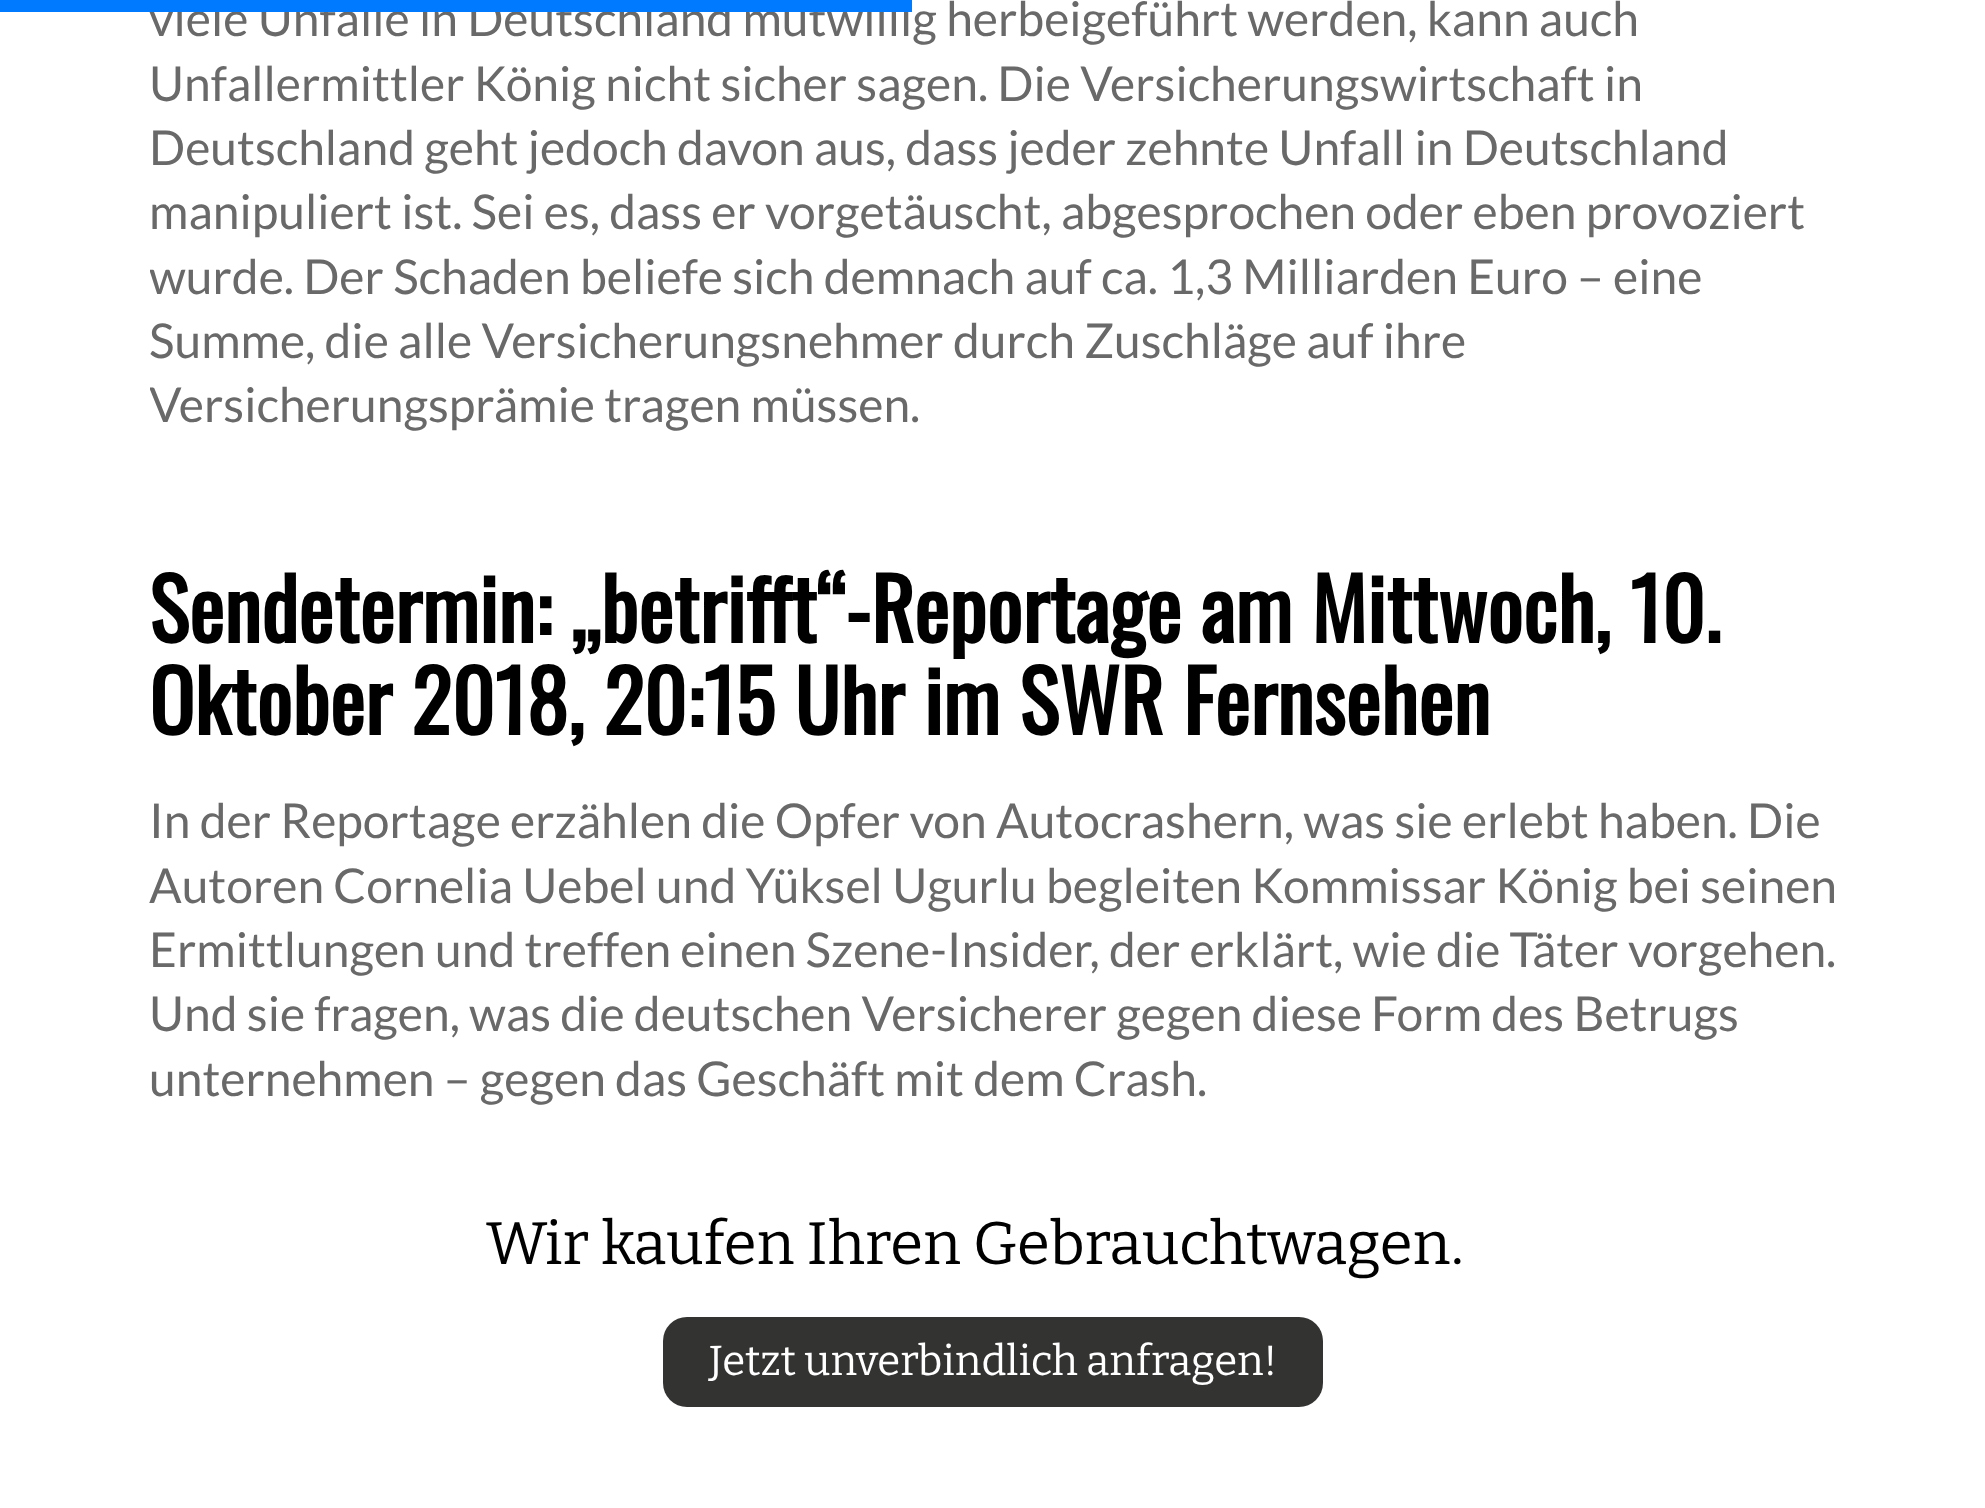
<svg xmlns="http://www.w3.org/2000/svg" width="1985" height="1508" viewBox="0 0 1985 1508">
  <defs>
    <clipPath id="clip1"><rect x="150" y="0" width="1686" height="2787"/></clipPath>
  </defs>
  <rect width="100%" height="100%" fill="rgb(255,255,255)"/>
  <text x="149" y="36" font-family="Lato" font-size="48" fill="rgb(105,105,105)">viele Unfälle in Deutschland mutwillig herbeigeführt werden, kann auch</text>
  <rect x="0" y="0" width="912" height="12" fill="rgb(0,123,255)"/>
  <g font-family="Lato" font-size="48" fill="rgb(105,105,105)">
    <text>
      <tspan x="149" y="101">Unfallermittler König nicht sicher sagen. Die Versicherungswirtschaft in</tspan>
      <tspan x="149" y="165">Deutschland geht jedoch davon aus, dass jeder zehnte Unfall in Deutschland</tspan>
      <tspan x="149" y="229">manipuliert ist. Sei es, dass er vorgetäuscht, abgesprochen oder eben provoziert</tspan>
    </text>
  </g>
  <g clip-path="url(#clip1)">
    <text x="149" y="294" font-family="Lato" font-size="48" fill="rgb(105,105,105)">wurde. Der Schaden beliefe sich demnach auf ca. 1,3 Milliarden Euro – eine</text>
  </g>
  <text x="149" y="358" font-family="Lato" font-size="48" fill="rgb(105,105,105)">Summe, die alle Versicherungsnehmer durch Zuschläge auf ihre</text>
  <g clip-path="url(#clip1)">
    <text x="149" y="422" font-family="Lato" font-size="48" fill="rgb(105,105,105)">Versicherungsprämie tragen müssen.</text>
  </g>
  <g font-family="Oswald" font-size="84" font-weight="bold" fill="rgb(0,0,0)">
    <text>
      <tspan x="149" y="643">Sendetermin: „betrifft“-Reportage am Mittwoch, 10.</tspan>
      <tspan x="149" y="735">Oktober 2018, 20:15 Uhr im SWR Fernsehen</tspan>
    </text>
  </g>
  <g font-family="Lato" font-size="48" fill="rgb(105,105,105)">
    <text>
      <tspan x="149" y="838">In der Reportage erzählen die Opfer von Autocrashern, was sie erlebt haben. Die</tspan>
      <tspan x="149" y="903">Autoren Cornelia Uebel und Yüksel Ugurlu begleiten Kommissar König bei seinen</tspan>
      <tspan x="149" y="967">Ermittlungen und treffen einen Szene-Insider, der erklärt, wie die Täter vorgehen.</tspan>
      <tspan x="149" y="1031">Und sie fragen, was die deutschen Versicherer gegen diese Form des Betrugs</tspan>
      <tspan x="149" y="1096">unternehmen – gegen das Geschäft mit dem Crash.</tspan>
    </text>
  </g>
  <text x="486" y="1264" font-family="Bitter" font-size="60" fill="rgb(0,0,0)">Wir kaufen Ihren Gebrauchtwagen.</text>
  <rect x="663" y="1317" width="660" height="90" rx="24" fill="rgb(51,51,50)"/>
  <text x="709" y="1375" font-family="Bitter" font-size="42" fill="rgb(255,255,255)">Jetzt unverbindlich anfragen!</text>
</svg>
